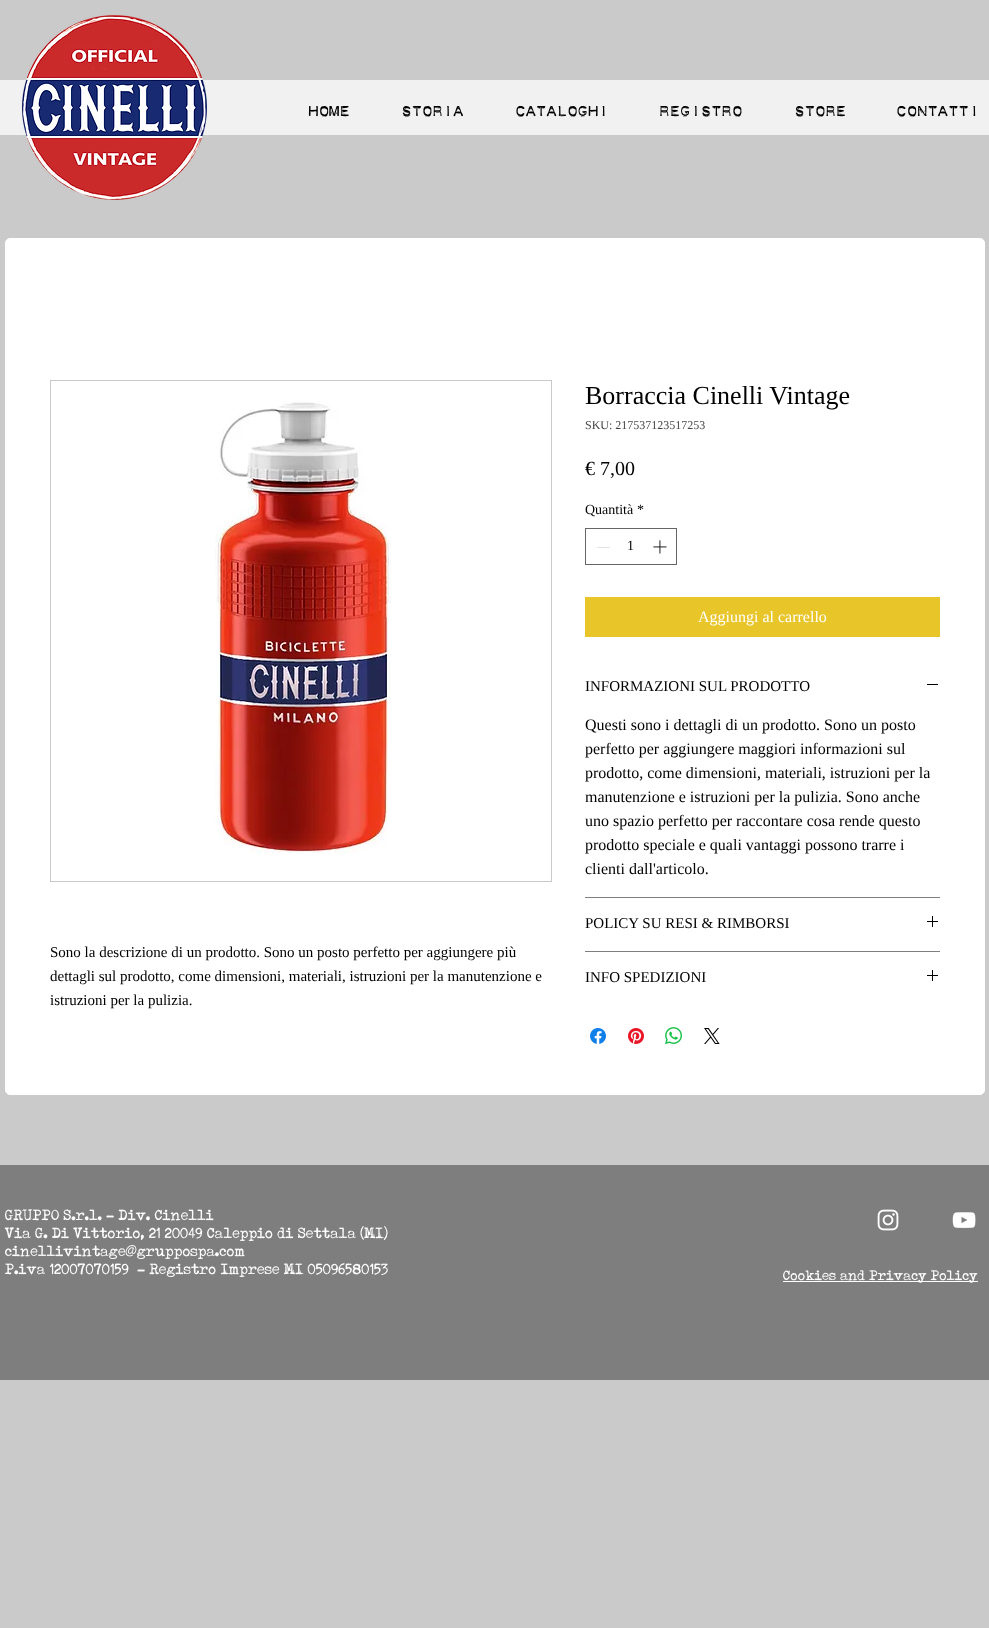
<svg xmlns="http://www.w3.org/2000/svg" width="989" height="1628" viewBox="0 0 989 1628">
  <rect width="100%" height="100%" fill="rgb(202,202,202)"/>
  <rect x="0" y="80" width="989" height="55" fill="rgb(241,241,241)"/>
  <image x="22" y="15" width="185" height="185" href="pic1.png"/>
  <g font-family="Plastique" font-size="11" font-weight="bold" fill="rgb(0,0,0)">
    <text x="308" y="116">Home</text>
    <text x="401" y="116">Storia</text>
    <text x="515" y="116">Cataloghi</text>
    <text x="659" y="116">Registro</text>
    <text x="794" y="116">Store</text>
    <text x="896" y="116">Contatti</text>
  </g>
  <rect x="5.5" y="238.5" width="979" height="856" rx="4.5" fill="rgb(255,255,255)" stroke="rgb(255,255,255)"/>
  <rect x="50.5" y="380.5" width="501" height="501" fill="none" stroke="rgb(202,202,202)"/>
  <image x="215" y="401" width="176" height="453" href="pic2.png"/>
  <g font-family="Liberation Serif" font-size="15" fill="rgb(0,0,0)">
    <text>
      <tspan x="50" y="957">Sono la descrizione di un prodotto. Sono un posto perfetto per aggiungere più</tspan>
      <tspan x="50" y="981">dettagli sul prodotto, come dimensioni, materiali, istruzioni per la manutenzione e</tspan>
      <tspan x="50" y="1005">istruzioni per la pulizia.</tspan>
    </text>
  </g>
  <text x="585" y="404" font-family="Liberation Serif" font-size="26" fill="rgb(0,0,0)">Borraccia Cinelli Vintage</text>
  <text x="585" y="429" font-family="Liberation Serif" font-size="12" fill="rgb(70,70,70)">SKU: 217537123517253</text>
  <text x="585" y="475" font-family="Liberation Serif" font-size="20" fill="rgb(0,0,0)">€ 7,00</text>
  <g font-family="Liberation Serif" font-size="14" fill="rgb(0,0,0)">
    <text x="585" y="514">Quantità</text>
    <text x="637" y="514">*</text>
  </g>
  <rect x="585.5" y="528.5" width="91" height="36" fill="none" stroke="rgb(102,102,102)"/>
  <rect x="597" y="547" width="13" height="1" fill="rgb(227,227,227)"/>
  <text x="627" y="550" font-family="Liberation Serif" font-size="14" fill="rgb(0,0,0)">1</text>
  <image x="653" y="540" width="14" height="14" href="pic3.png"/>
  <rect x="585" y="597" width="355" height="40" fill="rgb(232,197,41)"/>
  <text x="698" y="622" font-family="Liberation Serif" font-size="16" fill="rgb(255,255,255)">Aggiungi al carrello</text>
  <rect x="585" y="897" width="355" height="1" fill="rgb(127,126,126)"/>
  <text x="585" y="691" font-family="Liberation Serif" font-size="15" fill="rgb(0,0,0)">INFORMAZIONI SUL PRODOTTO</text>
  <rect x="927" y="684" width="11" height="1" fill="rgb(0,0,0)"/>
  <g font-family="Liberation Serif" font-size="16" fill="rgb(0,0,0)">
    <text>
      <tspan x="585" y="730">Questi sono i dettagli di un prodotto. Sono un posto</tspan>
      <tspan x="585" y="754">perfetto per aggiungere maggiori informazioni sul</tspan>
      <tspan x="585" y="778">prodotto, come dimensioni, materiali, istruzioni per la</tspan>
      <tspan x="585" y="802">manutenzione e istruzioni per la pulizia. Sono anche</tspan>
      <tspan x="585" y="826">uno spazio perfetto per raccontare cosa rende questo</tspan>
      <tspan x="585" y="850">prodotto speciale e quali vantaggi possono trarre i</tspan>
      <tspan x="585" y="874">clienti dall'articolo.</tspan>
    </text>
  </g>
  <rect x="585" y="951" width="355" height="1" fill="rgb(127,126,126)"/>
  <text x="585" y="928" font-family="Liberation Serif" font-size="15" fill="rgb(0,0,0)">POLICY SU RESI &amp; RIMBORSI</text>
  <image x="927" y="916" width="11" height="11" href="pic4.png"/>
  <text x="585" y="982" font-family="Liberation Serif" font-size="15" fill="rgb(0,0,0)">INFO SPEDIZIONI</text>
  <image x="927" y="970" width="11" height="11" href="pic4.png"/>
  <image x="590" y="1028" width="16" height="16" href="pic5.png"/>
  <image x="628" y="1028" width="16" height="16" href="pic6.png"/>
  <image x="665" y="1027" width="17" height="17" href="pic7.png"/>
  <image x="704" y="1028" width="16" height="16" href="pic8.png"/>
  <rect x="0" y="1165" width="989" height="215" fill="rgb(127,126,126)"/>
  <g font-family="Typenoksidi" font-size="15" fill="rgb(255,255,255)">
    <text>
      <tspan x="5" y="1220">GRUPPO S.r.l. - Div. Cinelli</tspan>
      <tspan x="5" y="1238">Via G. Di Vittorio, 21 20049 Caleppio di Settala (MI)</tspan>
      <tspan x="5" y="1256">cinellivintage</tspan>
    </text>
  </g>
  <text x="125" y="1256" font-family="'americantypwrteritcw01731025'" font-size="15" font-weight="bold" fill="rgb(255,255,255)">@</text>
  <g font-family="Typenoksidi" font-size="15" fill="rgb(255,255,255)">
    <text x="137" y="1256">gruppospa.com</text>
    <text x="5" y="1274" xml:space="preserve">P.iva 12007070159  - Registro Imprese MI 05096580153</text>
  </g>
  <image x="877" y="1209" width="22" height="22" href="pic9.png"/>
  <image x="952" y="1212" width="24" height="17" href="pic10.png"/>
  <rect x="783" y="1281" width="195" height="1" fill="rgb(255,255,255)"/>
  <text x="783" y="1280" font-family="Typenoksidi" font-size="14" fill="rgb(255,255,255)">Cookies and Privacy Policy</text>
</svg>
